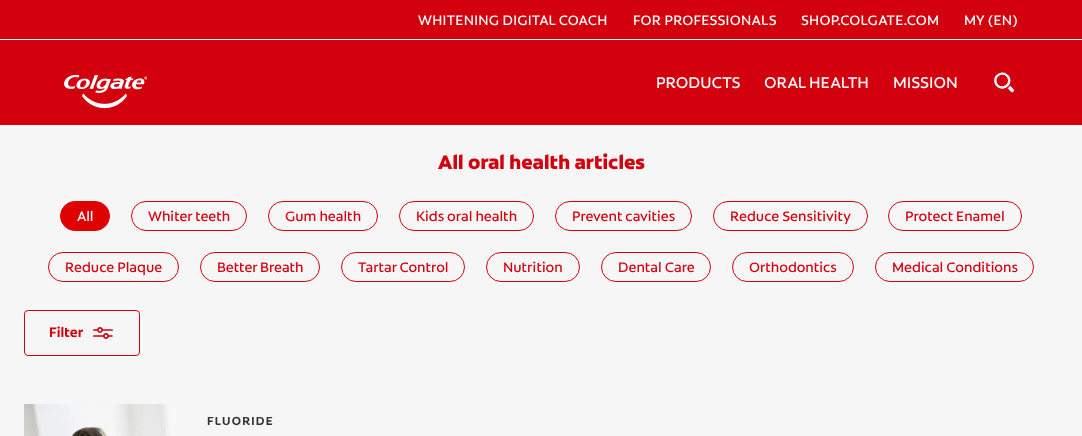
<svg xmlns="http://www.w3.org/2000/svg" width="1082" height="436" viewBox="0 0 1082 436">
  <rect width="100%" height="100%" fill="rgb(255,255,255)"/>
  <rect x="0" y="40" width="1082" height="85" fill="rgb(210,1,13)"/>
  <image x="64" y="74" width="83" height="35" href="pic1.png"/>
  <rect x="0" y="0" width="1082" height="39" fill="rgb(210,1,13)"/>
  <g font-family="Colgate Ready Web" font-size="14" letter-spacing="0.25" fill="rgb(255,255,255)">
    <text x="418" y="25">WHITENING DIGITAL COACH</text>
    <text x="633" y="25">FOR PROFESSIONALS</text>
    <text x="801" y="25">SHOP.COLGATE.COM</text>
    <text x="964" y="25">MY (EN)</text>
  </g>
  <g font-family="Colgate Ready Web" font-size="16" fill="rgb(255,255,255)">
    <text x="656" y="88">PRODUCTS</text>
    <text x="764" y="88">ORAL HEALTH</text>
    <text x="893" y="88">MISSION</text>
  </g>
  <image x="994" y="72" width="20" height="21" href="pic2.png"/>
  <rect x="0" y="125" width="1082" height="311" fill="rgb(246,246,246)"/>
  <text x="438" y="169" font-family="Colgate Ready Web" font-size="20" font-weight="900" fill="rgb(210,1,13)">All oral health articles</text>
  <rect x="60.5" y="201.5" width="49" height="29" rx="14.5" fill="rgb(223,0,0)" stroke="rgb(223,0,0)"/>
  <text x="77" y="221" font-family="Colgate Ready Web" font-size="14" fill="rgb(255,255,255)">All</text>
  <rect x="131.5" y="201.5" width="115" height="29" rx="14.5" fill="none" stroke="rgb(210,1,13)"/>
  <text x="148" y="221" font-family="Colgate Ready Web" font-size="14" fill="rgb(210,1,13)">Whiter teeth</text>
  <rect x="268.5" y="201.5" width="109" height="29" rx="14.5" fill="none" stroke="rgb(210,1,13)"/>
  <text x="285" y="221" font-family="Colgate Ready Web" font-size="14" fill="rgb(210,1,13)">Gum health</text>
  <rect x="399.5" y="201.5" width="134" height="29" rx="14.5" fill="none" stroke="rgb(210,1,13)"/>
  <text x="416" y="221" font-family="Colgate Ready Web" font-size="14" fill="rgb(210,1,13)">Kids oral health</text>
  <rect x="555.5" y="201.5" width="136" height="29" rx="14.5" fill="none" stroke="rgb(210,1,13)"/>
  <text x="572" y="221" font-family="Colgate Ready Web" font-size="14" fill="rgb(210,1,13)">Prevent cavities</text>
  <rect x="713.5" y="201.5" width="154" height="29" rx="14.5" fill="none" stroke="rgb(210,1,13)"/>
  <text x="730" y="221" font-family="Colgate Ready Web" font-size="14" fill="rgb(210,1,13)">Reduce Sensitivity</text>
  <rect x="888.5" y="201.5" width="133" height="29" rx="14.5" fill="none" stroke="rgb(210,1,13)"/>
  <text x="905" y="221" font-family="Colgate Ready Web" font-size="14" fill="rgb(210,1,13)">Protect Enamel</text>
  <rect x="48.5" y="252.5" width="130" height="29" rx="14.5" fill="none" stroke="rgb(210,1,13)"/>
  <text x="65" y="272" font-family="Colgate Ready Web" font-size="14" fill="rgb(210,1,13)">Reduce Plaque</text>
  <rect x="200.5" y="252.5" width="119" height="29" rx="14.5" fill="none" stroke="rgb(210,1,13)"/>
  <text x="217" y="272" font-family="Colgate Ready Web" font-size="14" fill="rgb(210,1,13)">Better Breath</text>
  <rect x="341.5" y="252.5" width="123" height="29" rx="14.5" fill="none" stroke="rgb(210,1,13)"/>
  <text x="358" y="272" font-family="Colgate Ready Web" font-size="14" fill="rgb(210,1,13)">Tartar Control</text>
  <rect x="486.5" y="252.5" width="93" height="29" rx="14.5" fill="none" stroke="rgb(210,1,13)"/>
  <text x="503" y="272" font-family="Colgate Ready Web" font-size="14" fill="rgb(210,1,13)">Nutrition</text>
  <rect x="601.5" y="252.5" width="109" height="29" rx="14.5" fill="none" stroke="rgb(210,1,13)"/>
  <text x="618" y="272" font-family="Colgate Ready Web" font-size="14" fill="rgb(210,1,13)">Dental Care</text>
  <rect x="732.5" y="252.5" width="121" height="29" rx="14.5" fill="none" stroke="rgb(210,1,13)"/>
  <text x="749" y="272" font-family="Colgate Ready Web" font-size="14" fill="rgb(210,1,13)">Orthodontics</text>
  <rect x="875.5" y="252.5" width="158" height="29" rx="14.5" fill="none" stroke="rgb(210,1,13)"/>
  <text x="892" y="272" font-family="Colgate Ready Web" font-size="14" fill="rgb(210,1,13)">Medical Conditions</text>
  <rect x="24.5" y="310.5" width="115" height="45" rx="3.5" fill="none" stroke="rgb(210,1,13)"/>
  <text x="49" y="337" font-family="Colgate Ready Web" font-size="14" font-weight="bold" fill="rgb(210,1,13)">Filter</text>
  <image x="93" y="327" width="20" height="12" href="pic3.png"/>
  <image x="24" y="404" width="153" height="32" href="pic4.png"/>
  <text x="207" y="425" font-family="Colgate Ready Web" font-size="12" font-weight="bold" letter-spacing="1.25" fill="rgb(51,51,51)">FLUORIDE</text>
</svg>
